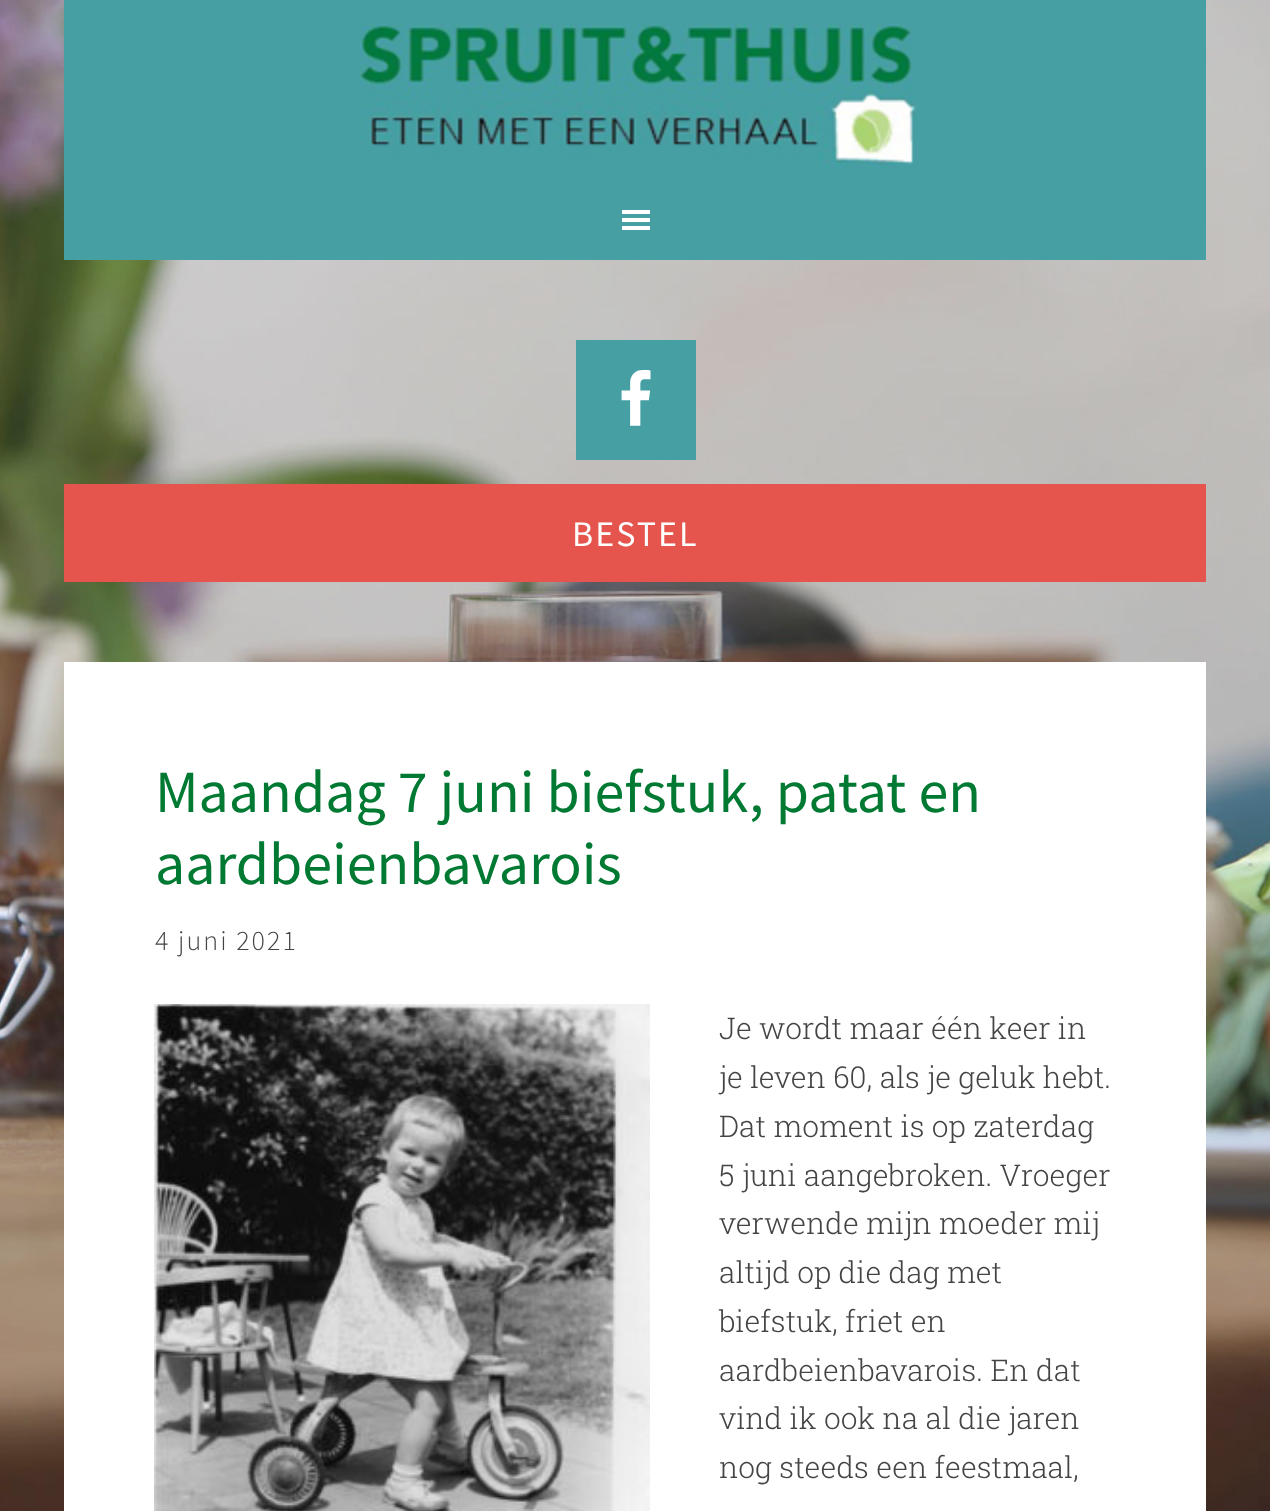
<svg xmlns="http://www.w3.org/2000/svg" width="1270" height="1511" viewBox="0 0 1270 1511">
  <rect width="100%" height="100%" fill="rgb(255,255,255)"/>
  <image x="0" y="0" width="1270" height="1511" href="pic1.png"/>
  <rect x="64" y="0" width="1142" height="260" fill="rgb(69,159,163)"/>
  <image x="359" y="23" width="558" height="145" href="pic2.png"/>
  <image x="622" y="210" width="28" height="20" href="pic3.png"/>
  <rect x="576" y="340" width="120" height="120" fill="rgb(69,159,163)"/>
  <image x="621" y="370" width="30" height="56" href="pic4.png"/>
  <rect x="64" y="484" width="1142" height="98" fill="rgb(229,85,78)"/>
  <text x="572" y="546" font-family="Source Sans Pro" font-size="36" letter-spacing="2" fill="rgb(255,255,255)">BESTEL</text>
  <rect x="64" y="662" width="1142" height="849" fill="rgb(255,255,255)"/>
  <g font-family="Source Sans Pro" font-size="60" fill="rgb(0,121,50)">
    <text>
      <tspan x="155" y="812">Maandag 7 juni biefstuk, patat en</tspan>
      <tspan x="155" y="884">aardbeienbavarois</tspan>
    </text>
  </g>
  <text x="155" y="950" font-family="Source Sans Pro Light" font-size="28" font-weight="300" letter-spacing="2" fill="rgb(68,68,68)">4 juni 2021</text>
  <image x="154" y="1004" width="496" height="507" href="pic5.png"/>
  <g font-family="Roboto Slab" font-size="30" font-weight="300" fill="rgb(68,68,68)">
    <text>
      <tspan x="719" y="1039">Je wordt maar één keer in</tspan>
      <tspan x="719" y="1088">je leven 60, als je geluk hebt.</tspan>
      <tspan x="719" y="1137">Dat moment is op zaterdag</tspan>
      <tspan x="719" y="1186">5 juni aangebroken. Vroeger</tspan>
      <tspan x="719" y="1234">verwende mijn moeder mij</tspan>
      <tspan x="719" y="1283">altijd op die dag met</tspan>
      <tspan x="719" y="1332">biefstuk, friet en</tspan>
      <tspan x="719" y="1381">aardbeienbavarois. En dat</tspan>
      <tspan x="719" y="1429">vind ik ook na al die jaren</tspan>
      <tspan x="719" y="1478">nog steeds een feestmaal,</tspan>
    </text>
  </g>
</svg>
